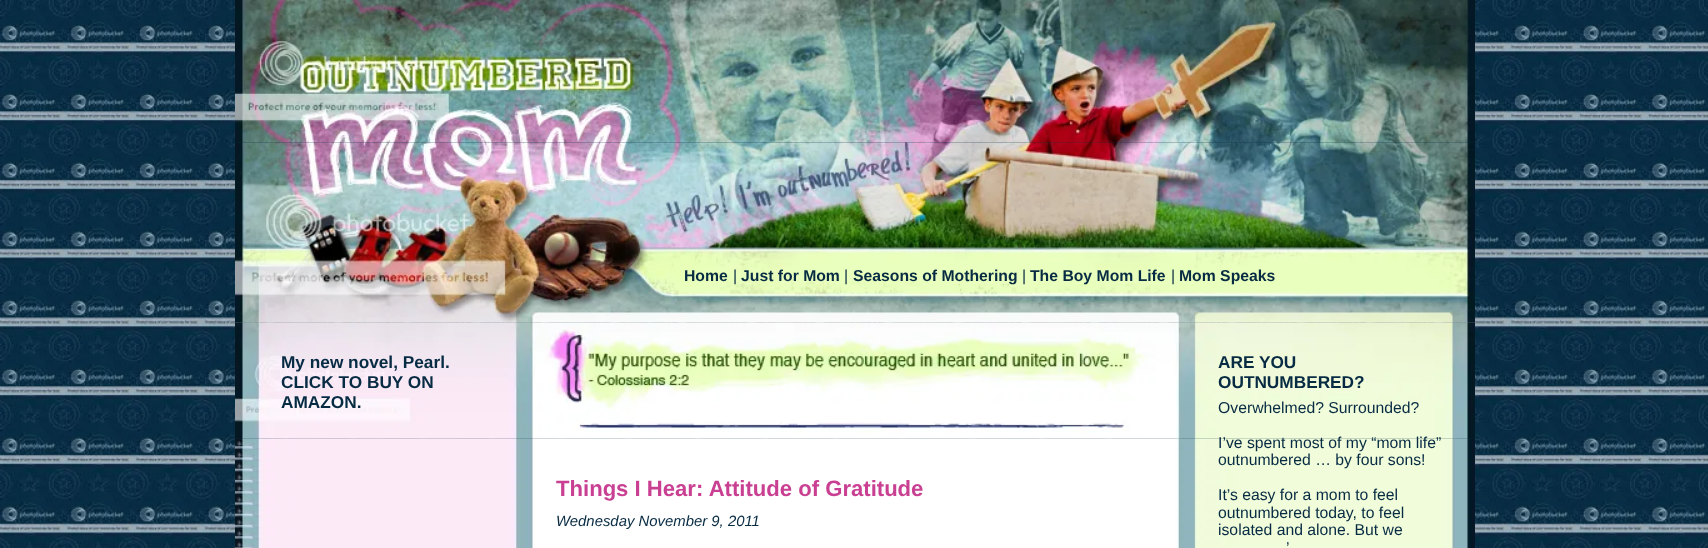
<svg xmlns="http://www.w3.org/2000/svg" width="1708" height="548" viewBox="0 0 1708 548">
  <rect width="100%" height="100%" fill="rgb(255,255,255)"/>
  <image x="0" y="0" width="1708" height="548" href="pic1.png"/>
  <image x="235" y="0" width="1240" height="143" href="pic2.png"/>
  <image x="235" y="142" width="1240" height="181" href="pic3.png"/>
  <text x="684" y="281" font-family="Liberation Sans" font-size="15.75" font-weight="bold" fill="rgb(7,43,67)">Home</text>
  <text x="733" y="281" font-family="Liberation Sans" font-size="15.75" fill="rgb(7,43,67)">|</text>
  <text x="741" y="281" font-family="Liberation Sans" font-size="15.75" font-weight="bold" fill="rgb(7,43,67)">Just for Mom</text>
  <text x="844" y="281" font-family="Liberation Sans" font-size="15.75" fill="rgb(7,43,67)">|</text>
  <text x="853" y="281" font-family="Liberation Sans" font-size="15.75" font-weight="bold" fill="rgb(7,43,67)">Seasons of Mothering</text>
  <text x="1022" y="281" font-family="Liberation Sans" font-size="15.75" fill="rgb(7,43,67)">|</text>
  <text x="1030" y="281" font-family="Liberation Sans" font-size="15.75" font-weight="bold" fill="rgb(7,43,67)">The Boy Mom Life</text>
  <text x="1171" y="281" font-family="Liberation Sans" font-size="15.75" fill="rgb(7,43,67)">|</text>
  <text x="1179" y="281" font-family="Liberation Sans" font-size="15.75" font-weight="bold" fill="rgb(7,43,67)">Mom Speaks</text>
  <image x="235" y="322" width="1240" height="117" href="pic4.png"/>
  <image x="235" y="438" width="1240" height="110" href="pic5.png"/>
  <g font-family="Liberation Sans" font-size="17.25" font-weight="bold" fill="rgb(7,43,67)">
    <text>
      <tspan x="281" y="368">My new novel, Pearl.</tspan>
      <tspan x="281" y="388">CLICK TO BUY ON</tspan>
      <tspan x="281" y="408">AMAZON.</tspan>
    </text>
  </g>
  <text x="556" y="496" font-family="Liberation Sans" font-size="22.1" font-weight="bold" fill="rgb(201,64,147)">Things I Hear: Attitude of Gratitude</text>
  <text x="556" y="526" font-family="Liberation Sans" font-size="14.9" font-style="italic" fill="rgb(7,43,67)">Wednesday November 9, 2011</text>
  <g font-family="Liberation Sans" font-size="17.25" font-weight="bold" fill="rgb(7,43,67)">
    <text>
      <tspan x="1218" y="368">ARE YOU</tspan>
      <tspan x="1218" y="388">OUTNUMBERED?</tspan>
    </text>
  </g>
  <g font-family="Liberation Sans" font-size="15.75" fill="rgb(7,43,67)">
    <text x="1218" y="413">Overwhelmed? Surrounded?</text>
    <text>
      <tspan x="1218" y="448">I’ve spent most of my “mom life”</tspan>
      <tspan x="1218" y="465">outnumbered … by four sons!</tspan>
    </text>
    <text>
      <tspan x="1218" y="500">It’s easy for a mom to feel</tspan>
      <tspan x="1218" y="518">outnumbered today, to feel</tspan>
      <tspan x="1218" y="535">isolated and alone. But we</tspan>
    </text>
    <text x="1286" y="553">’</text>
  </g>
</svg>
